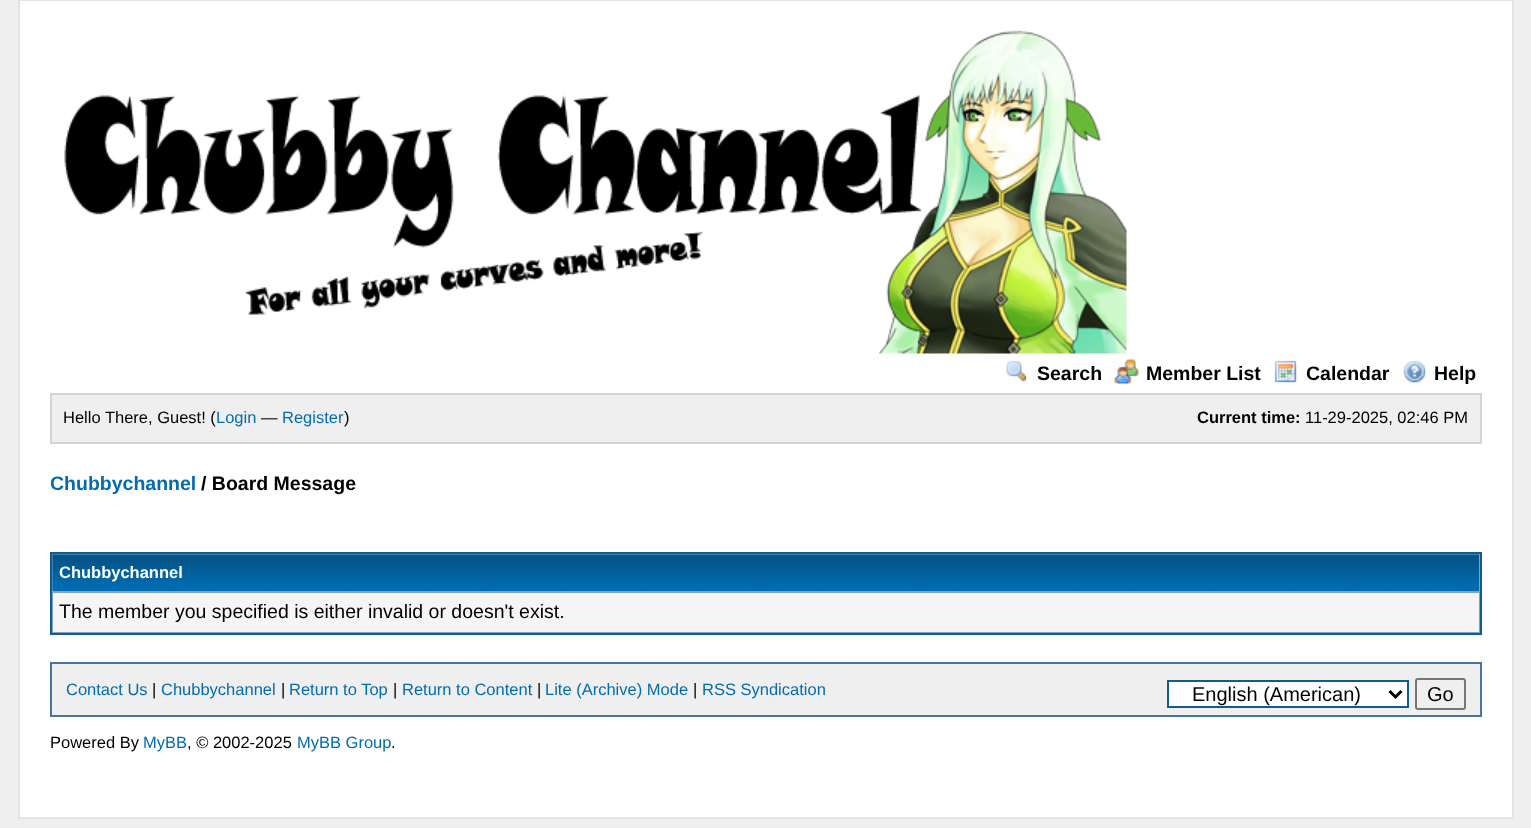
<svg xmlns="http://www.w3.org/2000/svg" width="1531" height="828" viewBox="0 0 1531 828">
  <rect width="100%" height="100%" fill="rgb(239,239,239)"/>
  <rect x="19" y="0" width="1494" height="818" fill="rgb(255,255,255)" stroke="rgb(228,228,228)" stroke-width="2"/>
  <image x="64" y="30" width="1063" height="324" href="pic1.png"/>
  <image x="1006" y="360" width="21" height="23" href="pic2.png"/>
  <text x="1037" y="380" font-family="Liberation Sans" font-size="19.5" font-weight="bold" fill="rgb(0,0,0)">Search</text>
  <image x="1114" y="359" width="25" height="25" href="pic3.png"/>
  <text x="1146" y="380" font-family="Liberation Sans" font-size="19.5" font-weight="bold" fill="rgb(0,0,0)">Member List</text>
  <image x="1274" y="360" width="23" height="23" href="pic4.png"/>
  <text x="1306" y="380" font-family="Liberation Sans" font-size="19.5" font-weight="bold" fill="rgb(0,0,0)">Calendar</text>
  <image x="1403" y="360" width="23" height="23" href="pic5.png"/>
  <text x="1434" y="380" font-family="Liberation Sans" font-size="19.5" font-weight="bold" fill="rgb(0,0,0)">Help</text>
  <rect x="51" y="394" width="1430" height="49" fill="rgb(239,239,239)" stroke="rgb(212,212,212)" stroke-width="2"/>
  <text x="63" y="423" font-family="Liberation Sans" font-size="16.5" fill="rgb(0,0,0)">Hello There, Guest! (</text>
  <text x="216" y="423" font-family="Liberation Sans" font-size="16.5" fill="rgb(2,108,177)">Login</text>
  <text x="261" y="423" font-family="Liberation Sans" font-size="16.5" fill="rgb(0,0,0)">—</text>
  <text x="282" y="423" font-family="Liberation Sans" font-size="16.5" fill="rgb(2,108,177)">Register</text>
  <text x="344" y="423" font-family="Liberation Sans" font-size="16.5" fill="rgb(0,0,0)">)</text>
  <text x="1197" y="423" font-family="Liberation Sans" font-size="16.5" font-weight="bold" fill="rgb(0,0,0)">Current time:</text>
  <text x="1305" y="423" font-family="Liberation Sans" font-size="16.5" fill="rgb(0,0,0)">11-29-2025, 02:46 PM</text>
  <text x="50" y="490" font-family="Liberation Sans" font-size="19.5" font-weight="bold" fill="rgb(2,108,177)">Chubbychannel</text>
  <text x="201" y="490" font-family="Liberation Sans" font-size="19.5" font-weight="bold" fill="rgb(0,0,0)">/ Board Message</text>
  <rect x="51" y="553" width="1430" height="81" fill="rgb(129,162,196)" stroke="rgb(15,92,142)" stroke-width="2"/>
  <rect x="53" y="590" width="1426" height="1" fill="rgb(2,108,177)"/>
  <image x="52" y="554" width="1427" height="37" href="pic6.png"/>
  <text x="59" y="578" font-family="Liberation Sans" font-size="16.5" font-weight="bold" fill="rgb(255,255,255)">Chubbychannel</text>
  <rect x="53" y="593" width="1426" height="39" fill="rgb(245,245,245)"/>
  <text x="59" y="618" font-family="Liberation Sans" font-size="19.5" fill="rgb(0,0,0)">The member you specified is either invalid or doesn't exist.</text>
  <rect x="51" y="663" width="1430" height="53" fill="rgb(239,239,239)" stroke="rgb(72,116,163)" stroke-width="2"/>
  <text x="66" y="695" font-family="Liberation Sans" font-size="16.5" fill="rgb(2,108,177)">Contact Us</text>
  <text x="152" y="695" font-family="Liberation Sans" font-size="16.5" fill="rgb(0,0,0)">|</text>
  <text x="161" y="695" font-family="Liberation Sans" font-size="16.5" fill="rgb(2,108,177)">Chubbychannel</text>
  <text x="281" y="695" font-family="Liberation Sans" font-size="16.5" fill="rgb(0,0,0)">|</text>
  <text x="289" y="695" font-family="Liberation Sans" font-size="16.5" fill="rgb(2,108,177)">Return to Top</text>
  <text x="393" y="695" font-family="Liberation Sans" font-size="16.5" fill="rgb(0,0,0)">|</text>
  <text x="402" y="695" font-family="Liberation Sans" font-size="16.5" fill="rgb(2,108,177)">Return to Content</text>
  <text x="537" y="695" font-family="Liberation Sans" font-size="16.5" fill="rgb(0,0,0)">|</text>
  <text x="545" y="695" font-family="Liberation Sans" font-size="16.5" fill="rgb(2,108,177)">Lite (Archive) Mode</text>
  <text x="693" y="695" font-family="Liberation Sans" font-size="16.5" fill="rgb(0,0,0)">|</text>
  <text x="702" y="695" font-family="Liberation Sans" font-size="16.5" fill="rgb(2,108,177)">RSS Syndication</text>
  <rect x="1168" y="681" width="240" height="26" fill="rgb(255,255,255)" stroke="rgb(15,92,142)" stroke-width="2"/>
  <path d="M1389.5 691L1395.5 697L1401.5 691" fill="none" stroke="rgb(0,0,0)" stroke-width="3"/>
  <text x="1192" y="701" font-family="Liberation Sans" font-size="20" fill="rgb(0,0,0)">English (American)</text>
  <rect x="1416" y="679" width="49" height="30" rx="2" fill="none" stroke="rgb(118,118,118)" stroke-width="2"/>
  <text x="1427" y="701" font-family="Liberation Sans" font-size="20" fill="rgb(0,0,0)">Go</text>
  <text x="50" y="748" font-family="Liberation Sans" font-size="16.5" fill="rgb(0,0,0)">Powered By</text>
  <text x="143" y="748" font-family="Liberation Sans" font-size="16.5" fill="rgb(2,108,177)">MyBB</text>
  <text x="187" y="748" font-family="Liberation Sans" font-size="16.5" fill="rgb(0,0,0)">, © 2002-2025</text>
  <text x="297" y="748" font-family="Liberation Sans" font-size="16.5" fill="rgb(2,108,177)">MyBB Group</text>
  <text x="391" y="748" font-family="Liberation Sans" font-size="16.5" fill="rgb(0,0,0)">.</text>
</svg>
